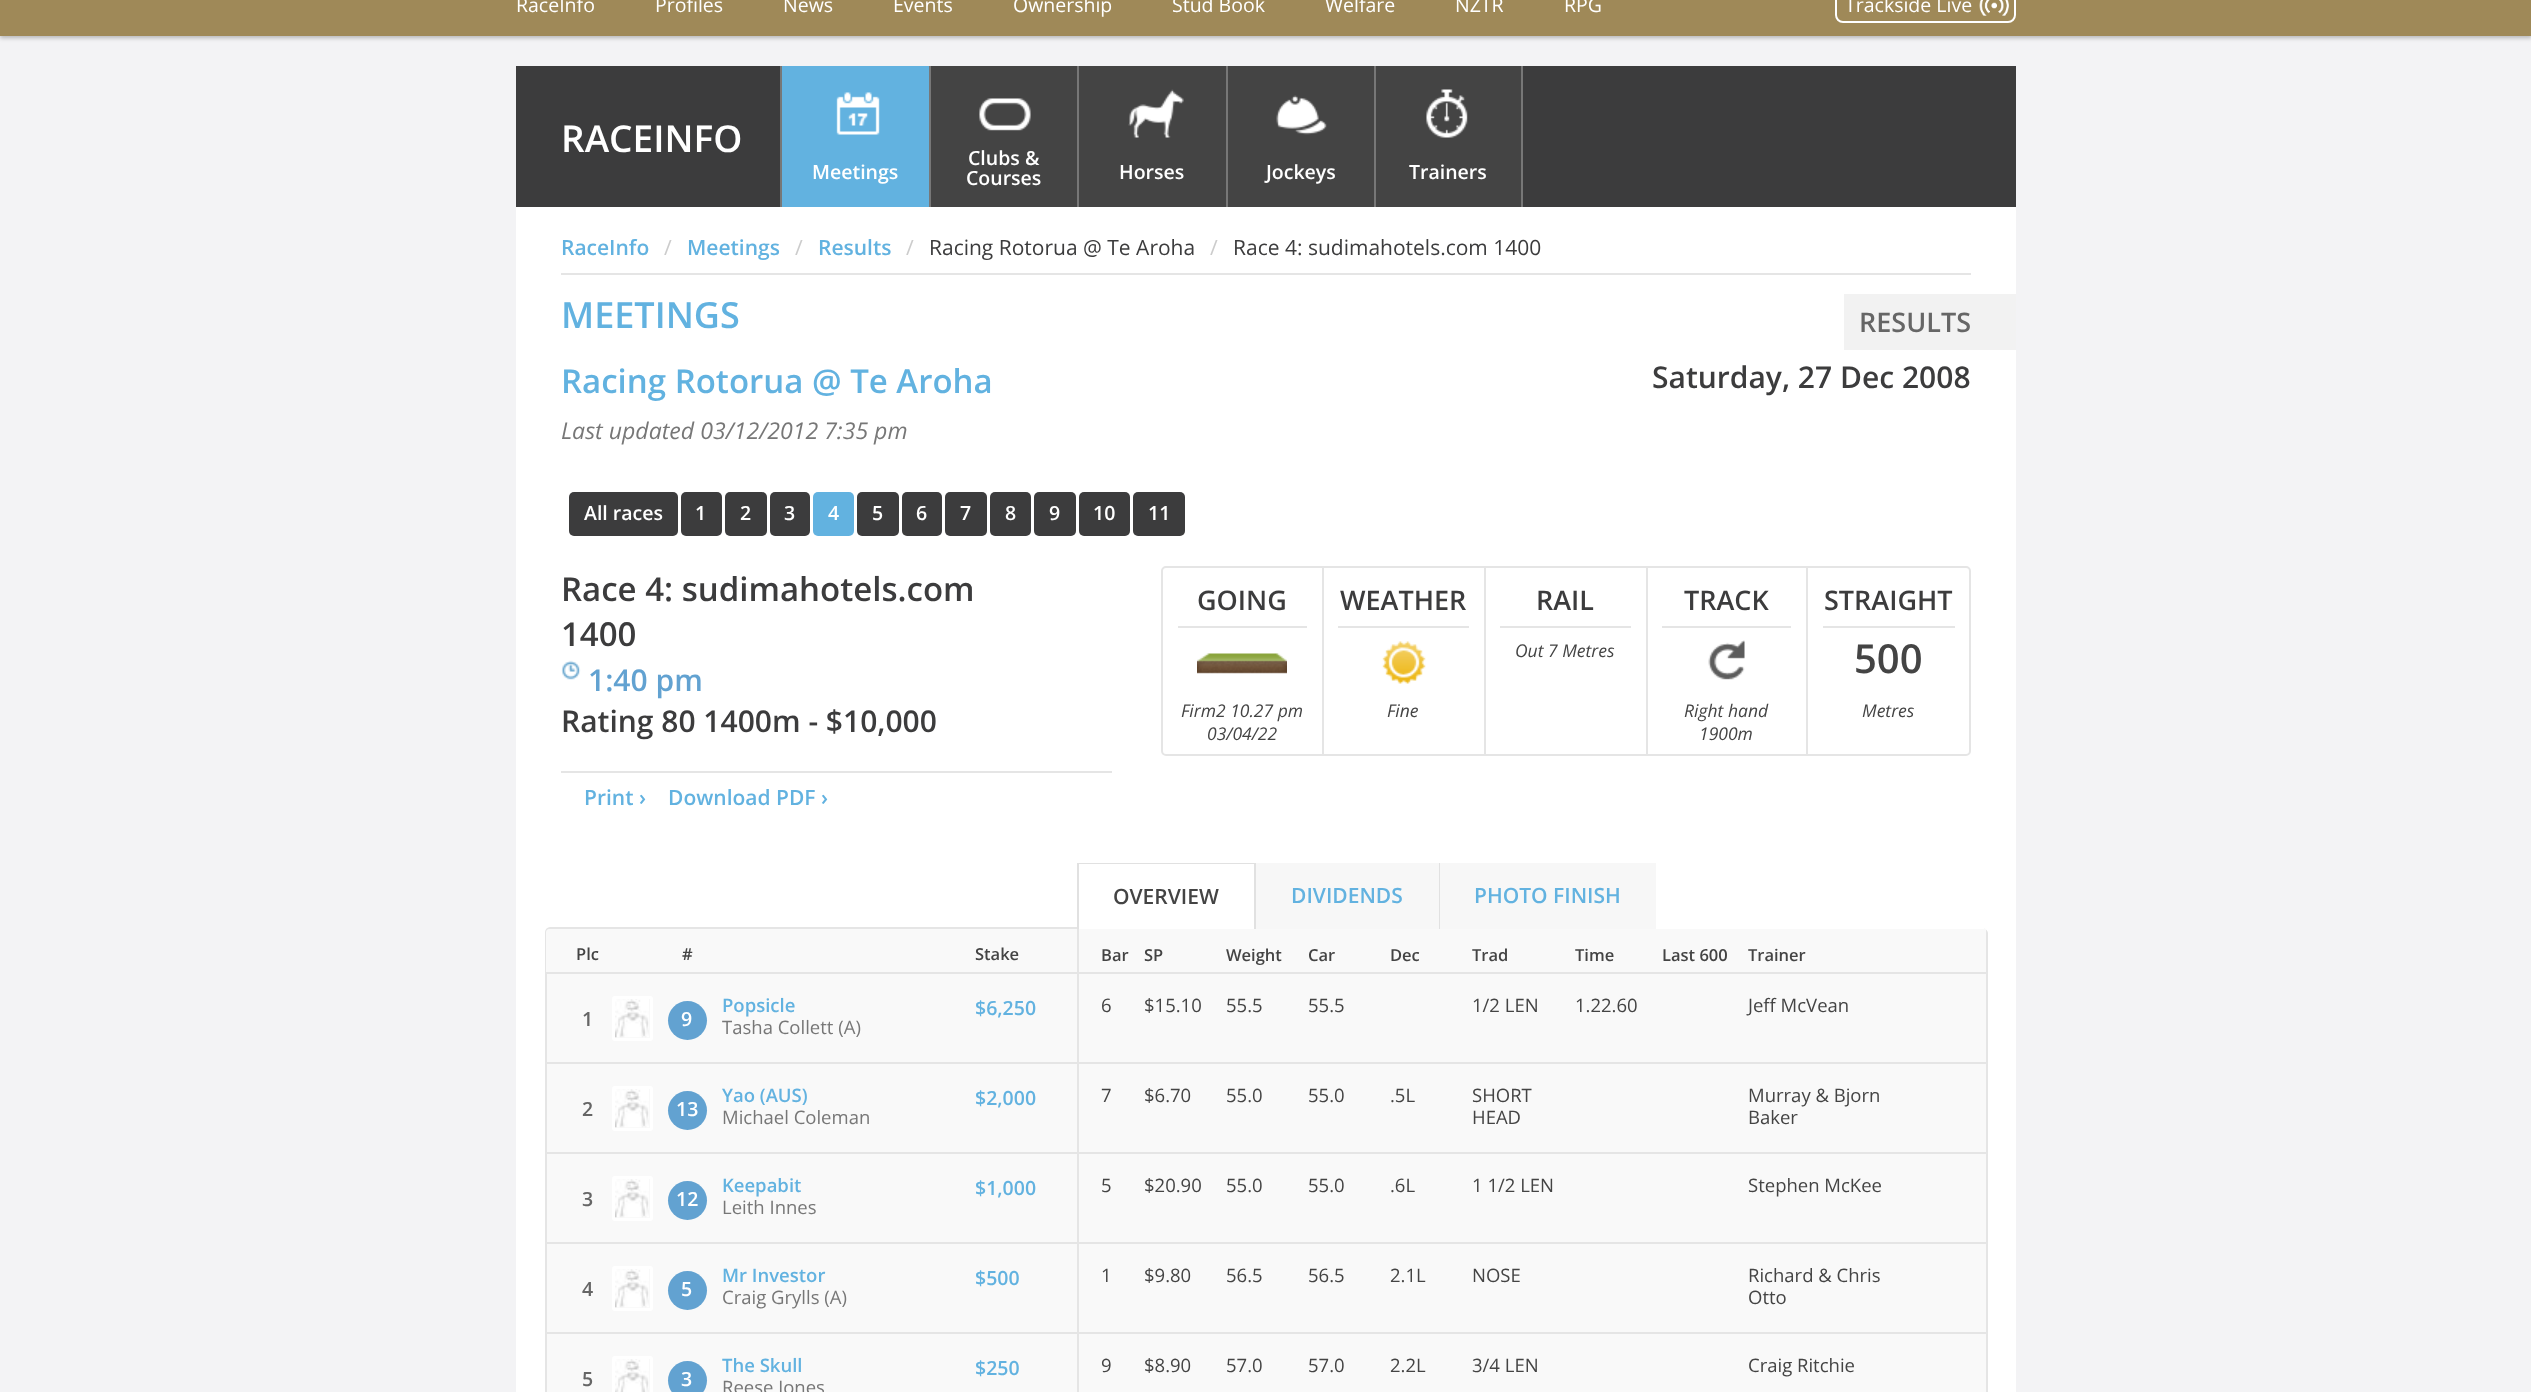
<svg xmlns="http://www.w3.org/2000/svg" width="2531" height="1392" viewBox="0 0 2531 1392">
  <rect width="100%" height="100%" fill="rgb(243,243,245)"/>
  <rect x="0" y="-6" width="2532" height="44" fill="rgba(0,0,0,0.25)" filter="blur(2px)"/>
  <rect x="0" y="0" width="2531" height="36" fill="rgb(159,137,88)"/>
  <g font-family="Open Sans" font-size="19.5" fill="rgb(255,255,255)">
    <text x="516" y="12">RaceInfo</text>
    <text x="655" y="12">Profiles</text>
    <text x="783" y="12">News</text>
    <text x="893" y="12">Events</text>
    <text x="1013" y="12">Ownership</text>
    <text x="1172" y="12">Stud Book</text>
    <text x="1325" y="12">Welfare</text>
    <text x="1455" y="12">NZTR</text>
    <text x="1564" y="12">RPG</text>
  </g>
  <image x="1979" y="0" width="30" height="16" href="pic1.png"/>
  <rect x="1836" y="-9" width="179" height="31" rx="7" fill="none" stroke="rgb(255,255,255)" stroke-width="2"/>
  <text x="1845" y="12" font-family="Open Sans" font-size="19.5" fill="rgb(255,255,255)">Trackside Live</text>
  <rect x="516" y="207" width="1500" height="1185" fill="rgb(255,255,255)"/>
  <rect x="516" y="66" width="1500" height="141" fill="rgb(60,60,61)"/>
  <text x="561" y="152" font-family="Open Sans" font-size="37" font-weight="600" fill="rgb(255,255,255)">RACEINFO</text>
  <rect x="931" y="66" width="590" height="141" fill="rgb(68,68,68)"/>
  <rect x="780" y="66" width="2" height="141" fill="rgb(119,119,119)"/>
  <rect x="782" y="66" width="147" height="141" fill="rgb(98,178,224)"/>
  <image x="836" y="92" width="44" height="43" href="pic2.png"/>
  <text x="812" y="179" font-family="Open Sans" font-size="19.5" font-weight="600" fill="rgb(255,255,255)">Meetings</text>
  <rect x="929" y="66" width="2" height="141" fill="rgb(119,119,119)"/>
  <image x="979" y="98" width="52" height="33" href="pic3.png"/>
  <g font-family="Open Sans" font-size="19.5" font-weight="600" fill="rgb(255,255,255)">
    <text x="968" y="165">Clubs &amp;</text>
    <text x="966" y="185">Courses</text>
  </g>
  <rect x="1077" y="66" width="2" height="141" fill="rgb(119,119,119)"/>
  <image x="1128" y="89" width="56" height="49" href="pic4.png"/>
  <text x="1119" y="179" font-family="Open Sans" font-size="19.5" font-weight="600" fill="rgb(255,255,255)">Horses</text>
  <rect x="1226" y="66" width="2" height="141" fill="rgb(119,119,119)"/>
  <image x="1276" y="95" width="51" height="40" href="pic5.png"/>
  <text x="1266" y="179" font-family="Open Sans" font-size="19.5" font-weight="600" fill="rgb(255,255,255)">Jockeys</text>
  <rect x="1521" y="66" width="2" height="141" fill="rgb(119,119,119)"/>
  <rect x="1374" y="66" width="2" height="141" fill="rgb(119,119,119)"/>
  <image x="1426" y="89" width="42" height="49" href="pic6.png"/>
  <text x="1409" y="179" font-family="Open Sans" font-size="19.5" font-weight="600" fill="rgb(255,255,255)">Trainers</text>
  <rect x="561" y="273" width="1410" height="2" fill="rgb(229,229,229)"/>
  <text x="561" y="255" font-family="Open Sans" font-size="21" font-weight="600" fill="rgb(98,178,224)">RaceInfo</text>
  <text x="664" y="255" font-family="Open Sans" font-size="21" fill="rgb(204,204,204)">/</text>
  <text x="687" y="255" font-family="Open Sans" font-size="21" font-weight="600" fill="rgb(98,178,224)">Meetings</text>
  <text x="795" y="255" font-family="Open Sans" font-size="21" fill="rgb(204,204,204)">/</text>
  <text x="818" y="255" font-family="Open Sans" font-size="21" font-weight="600" fill="rgb(98,178,224)">Results</text>
  <text x="906" y="255" font-family="Open Sans" font-size="21" fill="rgb(204,204,204)">/</text>
  <text x="929" y="255" font-family="Open Sans" font-size="21" fill="rgb(60,60,61)">Racing Rotorua @ Te Aroha</text>
  <text x="1210" y="255" font-family="Open Sans" font-size="21" fill="rgb(204,204,204)">/</text>
  <text x="1233" y="255" font-family="Open Sans" font-size="21" fill="rgb(60,60,61)">Race 4: sudimahotels.com 1400</text>
  <text x="561" y="328" font-family="Open Sans" font-size="36" font-weight="600" fill="rgb(98,178,224)">MEETINGS</text>
  <rect x="1844" y="294" width="172" height="56" fill="rgb(242,242,242)"/>
  <text x="1859" y="332" font-family="Open Sans" font-size="27" font-weight="600" fill="rgb(102,102,102)">RESULTS</text>
  <text x="1652" y="388" font-family="Open Sans" font-size="30" font-weight="600" fill="rgb(60,60,61)">Saturday, 27 Dec 2008</text>
  <text x="561" y="393" font-family="Open Sans" font-size="33" font-weight="600" fill="rgb(98,178,224)">Racing Rotorua @ Te Aroha</text>
  <text x="561" y="439" font-family="Open Sans" font-size="23.1" font-style="italic" fill="rgb(119,119,119)">Last updated 03/12/2012 7:35 pm</text>
  <rect x="569" y="492" width="109" height="44" rx="5" fill="rgb(60,60,61)"/>
  <text x="584" y="520" font-family="Open Sans" font-size="19.5" font-weight="600" fill="rgb(255,255,255)">All races</text>
  <rect x="681" y="492" width="41" height="44" rx="5" fill="rgb(60,60,61)"/>
  <text x="695" y="520" font-family="Open Sans" font-size="19.5" font-weight="600" fill="rgb(255,255,255)">1</text>
  <rect x="725" y="492" width="42" height="44" rx="5" fill="rgb(60,60,61)"/>
  <text x="740" y="520" font-family="Open Sans" font-size="19.5" font-weight="600" fill="rgb(255,255,255)">2</text>
  <rect x="770" y="492" width="40" height="44" rx="5" fill="rgb(60,60,61)"/>
  <text x="784" y="520" font-family="Open Sans" font-size="19.5" font-weight="600" fill="rgb(255,255,255)">3</text>
  <rect x="813" y="492" width="41" height="44" rx="5" fill="rgb(98,178,224)"/>
  <text x="828" y="520" font-family="Open Sans" font-size="19.5" font-weight="600" fill="rgb(255,255,255)">4</text>
  <rect x="857" y="492" width="42" height="44" rx="5" fill="rgb(60,60,61)"/>
  <text x="872" y="520" font-family="Open Sans" font-size="19.5" font-weight="600" fill="rgb(255,255,255)">5</text>
  <rect x="902" y="492" width="40" height="44" rx="5" fill="rgb(60,60,61)"/>
  <text x="916" y="520" font-family="Open Sans" font-size="19.5" font-weight="600" fill="rgb(255,255,255)">6</text>
  <rect x="945" y="492" width="42" height="44" rx="5" fill="rgb(60,60,61)"/>
  <text x="960" y="520" font-family="Open Sans" font-size="19.5" font-weight="600" fill="rgb(255,255,255)">7</text>
  <rect x="990" y="492" width="41" height="44" rx="5" fill="rgb(60,60,61)"/>
  <text x="1005" y="520" font-family="Open Sans" font-size="19.5" font-weight="600" fill="rgb(255,255,255)">8</text>
  <rect x="1034" y="492" width="42" height="44" rx="5" fill="rgb(60,60,61)"/>
  <text x="1049" y="520" font-family="Open Sans" font-size="19.5" font-weight="600" fill="rgb(255,255,255)">9</text>
  <rect x="1079" y="492" width="51" height="44" rx="5" fill="rgb(60,60,61)"/>
  <text x="1093" y="520" font-family="Open Sans" font-size="19.5" font-weight="600" fill="rgb(255,255,255)">10</text>
  <rect x="1133" y="492" width="52" height="44" rx="5" fill="rgb(60,60,61)"/>
  <text x="1148" y="520" font-family="Open Sans" font-size="19.5" font-weight="600" fill="rgb(255,255,255)">11</text>
  <g font-family="Open Sans" font-size="33" font-weight="600" fill="rgb(60,60,61)">
    <text>
      <tspan x="561" y="601">Race 4: sudimahotels.com</tspan>
      <tspan x="561" y="646">1400</tspan>
    </text>
  </g>
  <image x="561" y="660" width="20" height="20" href="pic7.png"/>
  <text x="588" y="691" font-family="Open Sans" font-size="30" font-weight="600" fill="rgb(98,162,209)">1:40 pm</text>
  <text x="561" y="732" font-family="Open Sans" font-size="30" font-weight="600" fill="rgb(60,60,61)">Rating 80 1400m - $10,000</text>
  <rect x="561" y="771" width="551" height="2" fill="rgb(229,229,229)"/>
  <g font-family="Open Sans" font-size="21" font-weight="600" fill="rgb(98,178,224)">
    <text x="584" y="805">Print ›</text>
    <text x="668" y="805">Download PDF ›</text>
  </g>
  <rect x="1162" y="567" width="808" height="188" rx="4" fill="none" stroke="rgb(229,229,229)" stroke-width="2"/>
  <rect x="1322" y="567" width="2" height="188" fill="rgb(229,229,229)"/>
  <rect x="1178" y="626" width="129" height="2" fill="rgb(229,229,229)"/>
  <text x="1197" y="610" font-family="Open Sans" font-size="27" font-weight="600" fill="rgb(60,60,61)">GOING</text>
  <image x="1197" y="653" width="90" height="21" href="pic8.png"/>
  <g font-family="Open Sans" font-size="17.5" font-style="italic" fill="rgb(68,68,68)">
    <text x="1181" y="717">Firm2 10.27 pm</text>
    <text x="1207" y="740">03/04/22</text>
  </g>
  <rect x="1484" y="567" width="2" height="188" fill="rgb(229,229,229)"/>
  <rect x="1338" y="626" width="131" height="2" fill="rgb(229,229,229)"/>
  <text x="1340" y="610" font-family="Open Sans" font-size="27" font-weight="600" fill="rgb(60,60,61)">WEATHER</text>
  <image x="1382" y="641" width="44" height="43" href="pic9.png"/>
  <text x="1387" y="717" font-family="Open Sans" font-size="17.5" font-style="italic" fill="rgb(68,68,68)">Fine</text>
  <rect x="1646" y="567" width="2" height="188" fill="rgb(229,229,229)"/>
  <rect x="1500" y="626" width="131" height="2" fill="rgb(229,229,229)"/>
  <text x="1536" y="610" font-family="Open Sans" font-size="27" font-weight="600" fill="rgb(60,60,61)">RAIL</text>
  <text x="1515" y="657" font-family="Open Sans" font-size="17.5" font-style="italic" fill="rgb(68,68,68)">Out 7 Metres</text>
  <rect x="1806" y="567" width="2" height="188" fill="rgb(229,229,229)"/>
  <rect x="1662" y="626" width="129" height="2" fill="rgb(229,229,229)"/>
  <text x="1684" y="610" font-family="Open Sans" font-size="27" font-weight="600" fill="rgb(60,60,61)">TRACK</text>
  <image x="1708" y="640" width="37" height="40" href="pic10.png"/>
  <g font-family="Open Sans" font-size="17.5" font-style="italic" fill="rgb(68,68,68)">
    <text x="1684" y="717">Right hand</text>
    <text x="1699" y="740">1900m</text>
  </g>
  <rect x="1823" y="626" width="132" height="2" fill="rgb(229,229,229)"/>
  <text x="1824" y="610" font-family="Open Sans" font-size="27" font-weight="600" fill="rgb(60,60,61)">STRAIGHT</text>
  <text x="1854" y="673" font-family="Open Sans" font-size="40" font-weight="600" fill="rgb(68,68,68)">500</text>
  <text x="1862" y="717" font-family="Open Sans" font-size="17.5" font-style="italic" fill="rgb(68,68,68)">Metres</text>
  <path d="M550 928H1078V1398H550C548 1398 546 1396 546 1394V932C546 930 548 928 550 928Z" fill="rgb(249,249,249)" stroke="rgb(229,229,229)" stroke-width="2"/>
  <path d="M549 929H1077V974H546V932C546 930.5 547.5 929 549 929Z" fill="rgb(249,249,249)"/>
  <rect x="546" y="972" width="531" height="2" fill="rgb(229,229,229)"/>
  <g font-family="Open Sans" font-size="16.5" font-weight="600" fill="rgb(68,68,68)">
    <text x="576" y="960">Plc</text>
    <text x="682" y="960">#</text>
    <text x="975" y="960">Stake</text>
  </g>
  <rect x="546" y="1062" width="531" height="2" fill="rgb(229,229,229)"/>
  <text x="582" y="1026" font-family="Open Sans" font-size="19.5" font-weight="600" fill="rgb(102,102,102)">1</text>
  <rect x="613.5" y="997.5" width="38" height="42" rx="1.5" fill="none" stroke="rgb(255,255,255)" stroke-width="3"/>
  <image x="615" y="999" width="34" height="39" href="pic11.png"/>
  <circle cx="687.5" cy="1020.5" r="19.5" fill="rgb(98,162,209)"/>
  <text x="681" y="1026" font-family="Open Sans" font-size="19.5" font-weight="600" fill="rgb(255,255,255)">9</text>
  <text x="722" y="1012" font-family="Open Sans" font-size="18.5" font-weight="600" fill="rgb(98,178,224)">Popsicle</text>
  <text x="722" y="1034" font-family="Open Sans" font-size="18.5" fill="rgb(119,119,119)">Tasha Collett (A)</text>
  <text x="975" y="1015" font-family="Open Sans" font-size="19.5" font-weight="600" fill="rgb(98,178,224)">$6,250</text>
  <rect x="546" y="1152" width="531" height="2" fill="rgb(229,229,229)"/>
  <text x="582" y="1116" font-family="Open Sans" font-size="19.5" font-weight="600" fill="rgb(102,102,102)">2</text>
  <rect x="613.5" y="1087.5" width="38" height="42" rx="1.5" fill="none" stroke="rgb(255,255,255)" stroke-width="3"/>
  <image x="615" y="1089" width="34" height="39" href="pic11.png"/>
  <circle cx="687.5" cy="1110.5" r="19.5" fill="rgb(98,162,209)"/>
  <text x="676" y="1116" font-family="Open Sans" font-size="19.5" font-weight="600" fill="rgb(255,255,255)">13</text>
  <text x="722" y="1102" font-family="Open Sans" font-size="18.5" font-weight="600" fill="rgb(98,178,224)">Yao (AUS)</text>
  <text x="722" y="1124" font-family="Open Sans" font-size="18.5" fill="rgb(119,119,119)">Michael Coleman</text>
  <text x="975" y="1105" font-family="Open Sans" font-size="19.5" font-weight="600" fill="rgb(98,178,224)">$2,000</text>
  <rect x="546" y="1242" width="531" height="2" fill="rgb(229,229,229)"/>
  <text x="582" y="1206" font-family="Open Sans" font-size="19.5" font-weight="600" fill="rgb(102,102,102)">3</text>
  <rect x="613.5" y="1177.5" width="38" height="42" rx="1.5" fill="none" stroke="rgb(255,255,255)" stroke-width="3"/>
  <image x="615" y="1179" width="34" height="39" href="pic11.png"/>
  <circle cx="687.5" cy="1200.5" r="19.5" fill="rgb(98,162,209)"/>
  <text x="676" y="1206" font-family="Open Sans" font-size="19.5" font-weight="600" fill="rgb(255,255,255)">12</text>
  <text x="722" y="1192" font-family="Open Sans" font-size="18.5" font-weight="600" fill="rgb(98,178,224)">Keepabit</text>
  <text x="722" y="1214" font-family="Open Sans" font-size="18.5" fill="rgb(119,119,119)">Leith Innes</text>
  <text x="975" y="1195" font-family="Open Sans" font-size="19.5" font-weight="600" fill="rgb(98,178,224)">$1,000</text>
  <rect x="546" y="1332" width="531" height="2" fill="rgb(229,229,229)"/>
  <rect x="613.5" y="1267.5" width="38" height="42" rx="1.5" fill="none" stroke="rgb(255,255,255)" stroke-width="3"/>
  <image x="615" y="1269" width="34" height="39" href="pic11.png"/>
  <text x="722" y="1282" font-family="Open Sans" font-size="18.5" font-weight="600" fill="rgb(98,178,224)">Mr Investor</text>
  <text x="722" y="1304" font-family="Open Sans" font-size="18.5" fill="rgb(119,119,119)">Craig Grylls (A)</text>
  <text x="975" y="1285" font-family="Open Sans" font-size="19.5" font-weight="600" fill="rgb(98,178,224)">$500</text>
  <text x="582" y="1296" font-family="Open Sans" font-size="19.5" font-weight="600" fill="rgb(102,102,102)">4</text>
  <circle cx="687.5" cy="1290.5" r="19.5" fill="rgb(98,162,209)"/>
  <text x="681" y="1296" font-family="Open Sans" font-size="19.5" font-weight="600" fill="rgb(255,255,255)">5</text>
  <rect x="613.5" y="1357.5" width="38" height="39" rx="1.5" fill="none" stroke="rgb(255,255,255)" stroke-width="3"/>
  <image x="615" y="1359" width="34" height="33" href="pic12.png"/>
  <text x="722" y="1372" font-family="Open Sans" font-size="18.5" font-weight="600" fill="rgb(98,178,224)">The Skull</text>
  <text x="722" y="1394" font-family="Open Sans" font-size="18.5" fill="rgb(119,119,119)">Reese Jones</text>
  <text x="975" y="1375" font-family="Open Sans" font-size="19.5" font-weight="600" fill="rgb(98,178,224)">$250</text>
  <text x="582" y="1386" font-family="Open Sans" font-size="19.5" font-weight="600" fill="rgb(102,102,102)">5</text>
  <circle cx="687.5" cy="1380.5" r="19.5" fill="rgb(98,162,209)"/>
  <text x="681" y="1386" font-family="Open Sans" font-size="19.5" font-weight="600" fill="rgb(255,255,255)">3</text>
  <path d="M1079 929H1983C1986 929 1988 931 1988 934V1392C1988 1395 1986 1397 1983 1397H1079Z" fill="rgb(249,249,249)"/>
  <path d="M1078 928H1983C1985 928 1988 931 1988 933V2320C1988 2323 1985 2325 1983 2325H1078ZM1078 928H1983C1985 928 1986 931 1986 933V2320C1986 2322 1985 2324 1983 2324H1078Z" fill="rgb(229,229,229)" fill-rule="evenodd"/>
  <rect x="1077" y="863" width="179" height="1" fill="rgb(225,225,225)"/>
  <rect x="1254" y="863" width="2" height="66" fill="rgb(225,225,225)"/>
  <rect x="1077" y="863" width="2" height="66" fill="rgb(225,225,225)"/>
  <text x="1113" y="904" font-family="Open Sans" font-size="21" font-weight="600" fill="rgb(68,68,68)">OVERVIEW</text>
  <rect x="1439" y="863" width="1" height="66" fill="rgb(225,225,225)"/>
  <rect x="1256" y="863" width="183" height="66" fill="rgb(247,247,247)"/>
  <text x="1291" y="903" font-family="Open Sans" font-size="21" font-weight="600" fill="rgb(98,178,224)">DIVIDENDS</text>
  <rect x="1440" y="863" width="216" height="66" fill="rgb(247,247,247)"/>
  <text x="1474" y="903" font-family="Open Sans" font-size="21" font-weight="600" fill="rgb(98,178,224)">PHOTO FINISH</text>
  <rect x="1985" y="929" width="1" height="3" fill="rgb(249,249,249)"/>
  <rect x="1079" y="972" width="907" height="2" fill="rgb(229,229,229)"/>
  <g font-family="Open Sans" font-size="16.5" font-weight="600" fill="rgb(68,68,68)">
    <text x="1101" y="961">Bar</text>
    <text x="1144" y="961">SP</text>
    <text x="1226" y="961">Weight</text>
    <text x="1308" y="961">Car</text>
    <text x="1390" y="961">Dec</text>
    <text x="1472" y="961">Trad</text>
    <text x="1575" y="961">Time</text>
    <text x="1662" y="961">Last 600</text>
    <text x="1748" y="961">Trainer</text>
  </g>
  <rect x="1079" y="1062" width="907" height="2" fill="rgb(229,229,229)"/>
  <g font-family="Open Sans" font-size="18.5" fill="rgb(68,68,68)">
    <text x="1101" y="1012">6</text>
    <text x="1144" y="1012">$15.10</text>
    <text x="1226" y="1012">55.5</text>
    <text x="1308" y="1012">55.5</text>
    <text x="1472" y="1012">1/2 LEN</text>
    <text x="1575" y="1012">1.22.60</text>
    <text x="1748" y="1012">Jeff McVean</text>
  </g>
  <rect x="1079" y="1152" width="907" height="2" fill="rgb(229,229,229)"/>
  <g font-family="Open Sans" font-size="18.5" fill="rgb(68,68,68)">
    <text x="1101" y="1102">7</text>
    <text x="1144" y="1102">$6.70</text>
    <text x="1226" y="1102">55.0</text>
    <text x="1308" y="1102">55.0</text>
    <text x="1390" y="1102">.5L</text>
    <text>
      <tspan x="1472" y="1102">SHORT</tspan>
      <tspan x="1472" y="1124">HEAD</tspan>
    </text>
    <text>
      <tspan x="1748" y="1102">Murray &amp; Bjorn</tspan>
      <tspan x="1748" y="1124">Baker</tspan>
    </text>
  </g>
  <rect x="1079" y="1242" width="907" height="2" fill="rgb(229,229,229)"/>
  <g font-family="Open Sans" font-size="18.5" fill="rgb(68,68,68)">
    <text x="1101" y="1192">5</text>
    <text x="1144" y="1192">$20.90</text>
    <text x="1226" y="1192">55.0</text>
    <text x="1308" y="1192">55.0</text>
    <text x="1390" y="1192">.6L</text>
    <text x="1472" y="1192">1 1/2 LEN</text>
    <text x="1748" y="1192">Stephen McKee</text>
  </g>
  <rect x="1079" y="1332" width="907" height="2" fill="rgb(229,229,229)"/>
  <g font-family="Open Sans" font-size="18.5" fill="rgb(68,68,68)">
    <text x="1101" y="1282">1</text>
    <text x="1144" y="1282">$9.80</text>
    <text x="1226" y="1282">56.5</text>
    <text x="1308" y="1282">56.5</text>
    <text x="1390" y="1282">2.1L</text>
    <text x="1472" y="1282">NOSE</text>
    <text>
      <tspan x="1748" y="1282">Richard &amp; Chris</tspan>
      <tspan x="1748" y="1304">Otto</tspan>
    </text>
    <text x="1101" y="1372">9</text>
    <text x="1144" y="1372">$8.90</text>
    <text x="1226" y="1372">57.0</text>
    <text x="1308" y="1372">57.0</text>
    <text x="1390" y="1372">2.2L</text>
    <text x="1472" y="1372">3/4 LEN</text>
    <text x="1748" y="1372">Craig Ritchie</text>
  </g>
</svg>
